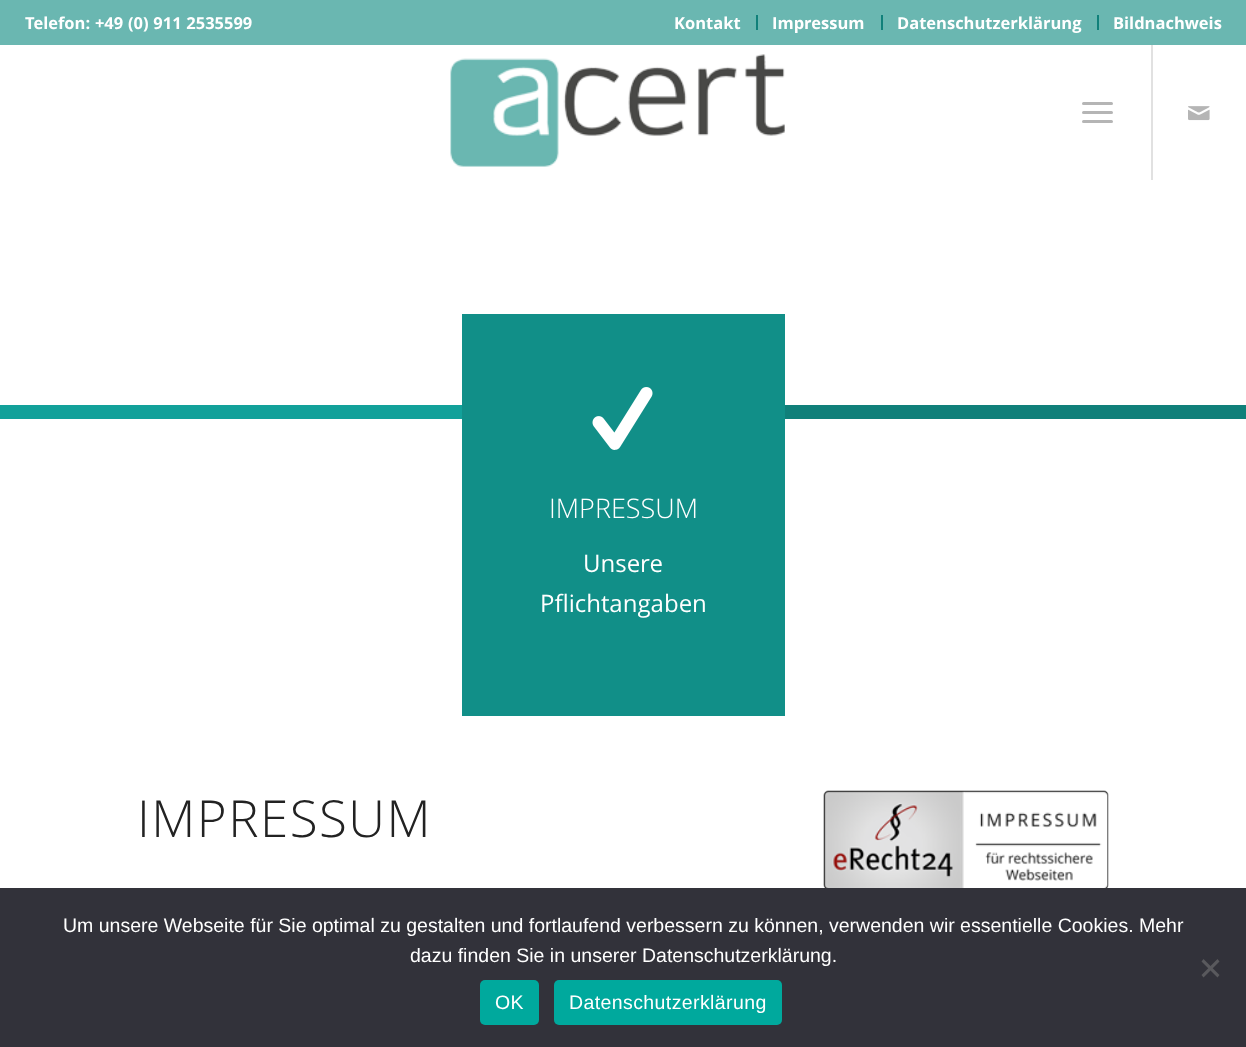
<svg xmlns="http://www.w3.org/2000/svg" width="1246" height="1047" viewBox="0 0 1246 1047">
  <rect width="100%" height="100%" fill="rgb(255,255,255)"/>
  <rect x="0" y="0" width="1246" height="45" fill="rgb(106,183,177)"/>
  <text x="25" y="29" word-spacing="0.5" font-family="Open Sans" font-size="16.5" font-weight="bold" fill="rgb(255,255,255)">Telefon: +49 (0) 911 2535599</text>
  <rect x="756" y="15" width="2" height="15" fill="rgb(16,128,122)"/>
  <text x="674" y="29" font-family="Open Sans" font-size="16.5" font-weight="bold" fill="rgb(255,255,255)">Kontakt</text>
  <rect x="881" y="15" width="2" height="15" fill="rgb(16,128,122)"/>
  <text x="772" y="29" font-family="Open Sans" font-size="16.5" font-weight="bold" fill="rgb(255,255,255)">Impressum</text>
  <rect x="1097" y="15" width="2" height="15" fill="rgb(16,128,122)"/>
  <g font-family="Open Sans" font-size="16.5" font-weight="bold" fill="rgb(255,255,255)">
    <text x="897" y="29">Datenschutzerklärung</text>
    <text x="1113" y="29">Bildnachweis</text>
  </g>
  <image x="450" y="54" width="335" height="113" href="pic1.png"/>
  <rect x="1151" y="45" width="2" height="135" fill="rgb(225,225,225)"/>
  <rect x="1082" y="111" width="31" height="3" rx="1.5" fill="rgb(181,181,181)"/>
  <rect x="1082" y="102" width="31" height="3" rx="1.5" fill="rgb(181,181,181)"/>
  <rect x="1082" y="120" width="31" height="3" rx="1.5" fill="rgb(181,181,181)"/>
  <image x="1188" y="106" width="22" height="15" href="pic2.png"/>
  <rect x="0" y="405" width="462" height="14" fill="rgb(18,161,154)"/>
  <rect x="785" y="405" width="461" height="14" fill="rgb(16,128,122)"/>
  <rect x="462" y="314" width="323" height="402" fill="rgb(17,143,136)"/>
  <image x="592" y="387" width="61" height="63" href="pic3.png"/>
  <text x="549" y="518" font-family="Open Sans" font-size="27" font-weight="300" fill="rgb(255,255,255)">IMPRESSUM</text>
  <g font-family="Open Sans" font-size="24" fill="rgb(255,255,255)">
    <text x="583" y="572">Unsere</text>
    <text x="540" y="612">Pflichtangaben</text>
  </g>
  <text x="137" y="837" font-family="Open Sans" font-size="51" font-weight="300" letter-spacing="1.5" fill="rgb(34,34,34)">IMPRESSUM</text>
  <image x="823" y="790" width="286" height="98" href="pic4.png"/>
  <rect x="0" y="888" width="1246" height="159" fill="rgb(50,50,58)"/>
  <g font-family="Liberation Sans" font-size="19.5" fill="rgb(255,255,255)">
    <text x="63" y="932">Um unsere Webseite für Sie optimal zu gestalten und fortlaufend verbessern zu können, verwenden wir essentielle Cookies. Mehr</text>
    <text x="410" y="962">dazu finden Sie in unserer Datenschutzerklärung.</text>
  </g>
  <path d="M1217.5 959L1219.5 961.5L1203.5 977.5L1201.5 975Z" fill="rgb(89,89,93)"/>
  <path d="M1201.5 961.5L1203.5 959L1219.5 975L1217.5 977.5Z" fill="rgb(89,89,93)"/>
  <rect x="480" y="980" width="59" height="45" rx="5" fill="rgb(0,169,157)"/>
  <text x="495" y="1009" font-family="Liberation Sans" font-size="19.5" letter-spacing="0.4" fill="rgb(255,255,255)">OK</text>
  <rect x="554" y="980" width="228" height="45" rx="5" fill="rgb(0,169,157)"/>
  <text x="569" y="1009" font-family="Liberation Sans" font-size="19.5" letter-spacing="0.4" fill="rgb(255,255,255)">Datenschutzerklärung</text>
</svg>
